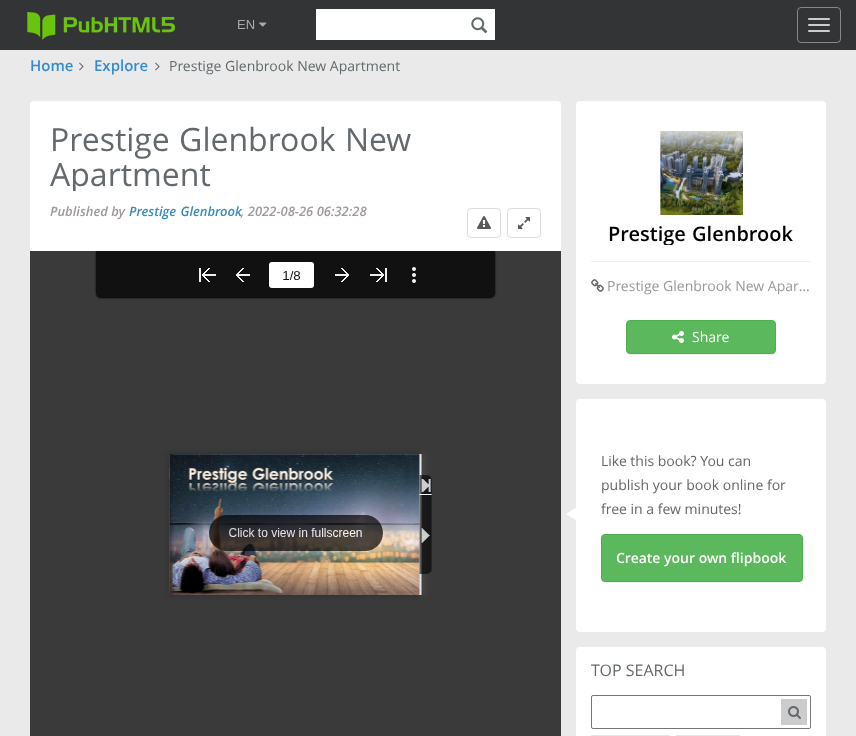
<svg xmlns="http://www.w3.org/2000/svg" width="856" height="736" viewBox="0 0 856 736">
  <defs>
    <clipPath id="clip1"><rect x="50" y="121" width="491" height="70"/></clipPath>
    <clipPath id="clip2"><rect x="591" y="223" width="220" height="22"/></clipPath>
  </defs>
  <rect width="100%" height="100%" fill="rgb(234,234,234)"/>
  <rect x="0" y="0" width="856" height="50" fill="rgb(50,52,54)"/>
  <image x="27" y="12" width="148" height="28" href="pic1.png"/>
  <text x="237" y="29" font-family="Liberation Sans" font-size="13" fill="rgb(170,170,170)">EN</text>
  <image x="259" y="22" width="8" height="5" href="pic2.png"/>
  <rect x="316" y="10" width="179" height="30" fill="rgb(255,255,255)"/>
  <rect x="316" y="9" width="179" height="1" fill="rgb(249,249,249)"/>
  <image x="471" y="17" width="17" height="17" href="pic3.png"/>
  <rect x="797.5" y="7.5" width="43" height="35" rx="3.5" fill="none" stroke="rgb(136,136,136)"/>
  <rect x="808" y="18" width="22" height="2" rx="1" fill="rgb(204,204,204)"/>
  <rect x="808" y="24" width="22" height="2" rx="1" fill="rgb(204,204,204)"/>
  <rect x="808" y="30" width="22" height="2" rx="1" fill="rgb(204,204,204)"/>
  <text x="30" y="71" font-family="Open Sans" font-size="15" font-weight="600" fill="rgb(54,139,207)">Home</text>
  <image x="79" y="62" width="5" height="9" href="pic4.png"/>
  <text x="94" y="71" font-family="Open Sans" font-size="15" font-weight="600" fill="rgb(54,139,207)">Explore</text>
  <image x="155" y="62" width="5" height="9" href="pic4.png"/>
  <text x="169" y="71" font-family="Open Sans" font-size="14" fill="rgb(99,105,108)">Prestige Glenbrook New Apartment</text>
  <rect x="30" y="101" width="531" height="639" rx="4" fill="rgb(255,255,255)"/>
  <text x="50" y="151" word-spacing="1" font-family="Open Sans" font-size="32" fill="rgb(99,105,108)">Prestige Glenbrook New</text>
  <g clip-path="url(#clip1)">
    <text x="50" y="186" font-family="Open Sans" font-size="32" fill="rgb(99,105,108)">Apartment</text>
  </g>
  <text x="50" y="216" font-family="Open Sans" font-size="13" font-weight="600" font-style="italic" fill="rgb(160,153,153)">Published by</text>
  <text x="129" y="216" word-spacing="1" font-family="Open Sans" font-size="13" font-weight="600" font-style="italic" fill="rgb(58,139,187)">Prestige Glenbrook</text>
  <text x="241" y="216" font-family="Open Sans" font-size="13" font-weight="600" font-style="italic" fill="rgb(160,153,153)">, 2022-08-26 06:32:28</text>
  <rect x="467.5" y="208.5" width="33" height="29" rx="3.5" fill="none" stroke="rgb(221,221,221)"/>
  <image x="477" y="216" width="14" height="13" href="pic5.png"/>
  <rect x="507.5" y="208.5" width="33" height="29" rx="3.5" fill="none" stroke="rgb(221,221,221)"/>
  <image x="518" y="217" width="12" height="12" href="pic6.png"/>
  <image x="30" y="251" width="531" height="485" href="pic7.png"/>
  <rect x="576" y="101" width="250" height="283" rx="4" fill="rgb(255,255,255)"/>
  <image x="660" y="131" width="83" height="84" href="pic8.png"/>
  <g clip-path="url(#clip2)">
    <text x="608" y="241" word-spacing="1" font-family="Open Sans" font-size="20" font-weight="600" fill="rgb(0,0,0)">Prestige Glenbrook</text>
  </g>
  <rect x="591" y="261" width="220" height="1" fill="rgb(238,238,238)"/>
  <image x="591" y="279" width="13" height="13" href="pic9.png"/>
  <text x="607" y="291" font-family="Open Sans" font-size="14" fill="rgb(153,153,153)">Prestige Glenbrook New Apar…</text>
  <path d="M626 350C626 352 627 354 629 355H772C775 355 776 353 776 350L775 353L772 354H630C628 354 626 352 626 350Z" fill="rgb(242,242,242)"/>
  <rect x="626.5" y="320.5" width="149" height="33" rx="3.5" fill="rgb(92,184,92)" stroke="rgb(76,174,76)"/>
  <image x="672" y="331" width="12" height="12" href="pic10.png"/>
  <text x="692" y="342" font-family="Open Sans" font-size="14" fill="rgb(255,255,255)">Share</text>
  <rect x="576" y="399" width="250" height="233" rx="4" fill="rgb(255,255,255)"/>
  <g font-family="Open Sans" font-size="14" fill="rgb(102,102,102)">
    <text>
      <tspan x="601" y="466">Like this book? You can</tspan>
      <tspan x="601" y="490">publish your book online for</tspan>
    </text>
  </g>
  <path d="M592 498V530L566 514Z" fill="rgb(255,255,255)"/>
  <text x="601" y="514" font-family="Open Sans" font-size="14" fill="rgb(102,102,102)">free in a few minutes!</text>
  <path d="M601 578V579C601 581 603 583 605 583H799C801 583 803 581 803 579V578C803 580 801 582 799 582H605C603 582 601 580 601 578Z" fill="rgb(242,242,242)"/>
  <rect x="601.5" y="534.5" width="201" height="47" rx="3.5" fill="rgb(92,184,92)" stroke="rgb(76,174,76)"/>
  <text x="616" y="563" font-family="Open Sans" font-size="14" font-weight="600" fill="rgb(255,255,255)">Create your own flipbook</text>
  <rect x="576" y="647" width="250" height="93" rx="4" fill="rgb(255,255,255)"/>
  <text x="591" y="676" font-family="Open Sans" font-size="16" fill="rgb(99,105,108)">TOP SEARCH</text>
  <rect x="591.5" y="695.5" width="219" height="33" rx="1.5" fill="none" stroke="rgb(118,118,118)"/>
  <rect x="781" y="699" width="26" height="26" fill="rgb(204,204,204)"/>
  <image x="788" y="706" width="13" height="13" href="pic11.png"/>
  <rect x="591.5" y="735.5" width="78" height="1" fill="none" stroke="rgb(229,229,229)"/>
  <rect x="676.5" y="735.5" width="63" height="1" fill="none" stroke="rgb(229,229,229)"/>
</svg>
